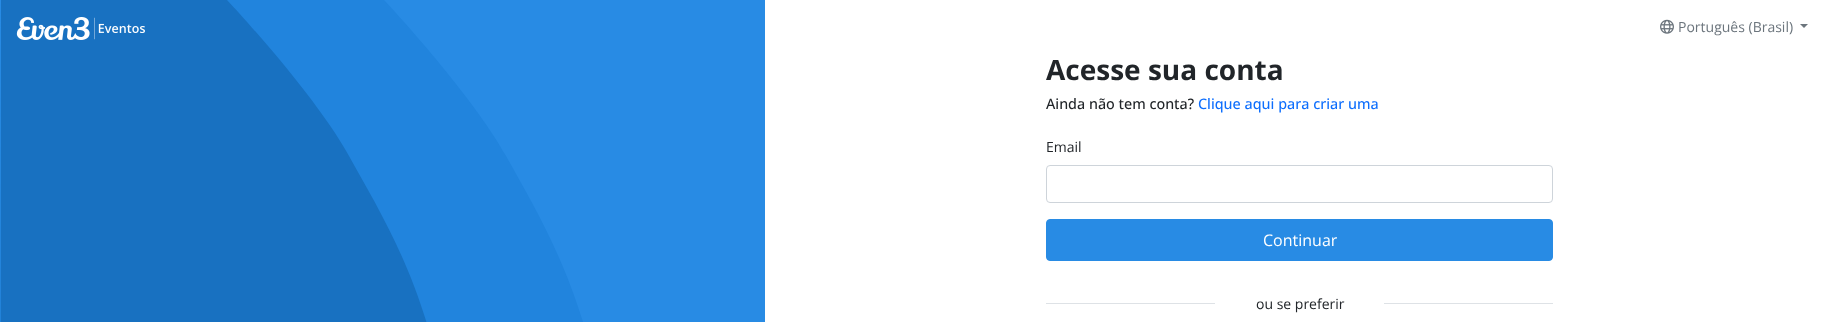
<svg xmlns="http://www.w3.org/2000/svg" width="1835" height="322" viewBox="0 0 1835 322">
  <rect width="100%" height="100%" fill="rgb(255,255,255)"/>
  <rect x="0" y="0" width="765" height="322" fill="rgb(40,139,228)"/>
  <path d="M384 0H157V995H323C442 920 528 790 556 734C616 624 614 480 605 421C586 291 541 219 506 156C478 105 413 31 384 0Z" fill="rgb(33,132,221)"/>
  <path d="M227 0H1L0 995H166C286 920 371 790 399 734C459 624 457 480 448 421C430 291 384 219 349 156C321 105 256 31 227 0Z" fill="rgb(24,113,193)"/>
  <image x="16" y="17" width="129" height="23" href="pic1.png"/>
  <image x="1660" y="19" width="14" height="15" href="pic2.png"/>
  <text x="1678" y="32" font-family="Open Sans" font-size="14" fill="rgb(108,117,125)">Português (Brasil)</text>
  <path d="M1800 24H1808L1804 28Z" fill="rgb(108,117,125)"/>
  <text x="1046" y="80" font-family="Open Sans" font-size="28" font-weight="bold" fill="rgb(33,37,41)">Acesse sua conta</text>
  <text x="1046" y="109" font-family="Open Sans" font-size="14.4" font-weight="500" fill="rgb(33,37,41)">Ainda não tem conta?</text>
  <text x="1198" y="109" font-family="Open Sans" font-size="14.4" font-weight="500" fill="rgb(13,110,253)">Clique aqui para criar uma</text>
  <text x="1046" y="152" font-family="Open Sans" font-size="14" fill="rgb(33,37,41)">Email</text>
  <rect x="1046.5" y="165.5" width="506" height="37" rx="3.5" fill="none" stroke="rgb(206,212,218)"/>
  <rect x="1046.5" y="219.5" width="506" height="41" rx="3.5" fill="rgb(40,139,228)" stroke="rgb(40,139,228)"/>
  <text x="1263" y="246" font-family="Open Sans" font-size="16" fill="rgb(255,255,255)">Continuar</text>
  <rect x="1046" y="303" width="169" height="1" fill="rgb(222,226,230)"/>
  <text x="1256" y="309" font-family="Open Sans" font-size="14" fill="rgb(33,37,41)">ou se preferir</text>
  <rect x="1384" y="303" width="169" height="1" fill="rgb(222,226,230)"/>
</svg>
